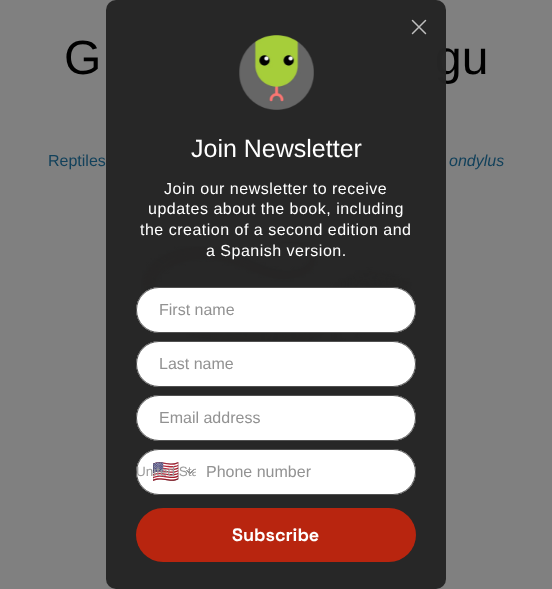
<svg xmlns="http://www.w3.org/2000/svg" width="552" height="589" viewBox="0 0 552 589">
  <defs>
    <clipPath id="clip1"><rect x="136" y="464" width="60" height="15"/></clipPath>
  </defs>
  <rect width="100%" height="100%" fill="rgb(128,128,128)"/>
  <g font-family="Liberation Sans" font-size="48" fill="rgb(0,0,0)">
    <text x="64" y="74">G</text>
    <text x="435" y="74">gu</text>
  </g>
  <text x="48" y="166" font-family="Liberation Sans" font-size="16" fill="rgb(18,65,91)">Reptiles</text>
  <text x="449" y="166" font-family="Liberation Sans" font-size="16" font-style="italic" fill="rgb(18,65,91)">ondylus</text>
  <image x="141" y="240" width="271" height="145" href="pic1.png"/>
  <rect x="106" y="0" width="340" height="589" rx="10" fill="rgba(37,37,37,0.99)"/>
  <path d="M412.5 20.5L425.5 33.5M425.5 20.5L412.5 33.5" fill="none" stroke="rgb(190,190,190)" stroke-width="1.5" stroke-linecap="round"/>
  <image x="239" y="35" width="75" height="75" href="pic2.png"/>
  <text x="191" y="157" font-family="Liberation Sans" font-size="25" fill="rgb(255,255,255)">Join Newsletter</text>
  <g font-family="Liberation Sans" font-size="16" letter-spacing="0.5" fill="rgb(255,255,255)">
    <text x="164" y="194">Join our newsletter to receive</text>
    <text x="148" y="214">updates about the book, including</text>
    <text x="140" y="235">the creation of a second edition and</text>
    <text x="206" y="256">a Spanish version.</text>
  </g>
  <rect x="136" y="287" width="280" height="46" rx="23" fill="rgb(255,255,255)"/>
  <rect x="136.5" y="287.5" width="279" height="45" rx="22.5" fill="none" stroke="rgba(37,37,37,0.8)"/>
  <text x="159" y="315" font-family="Liberation Sans" font-size="16" fill="rgb(146,146,146)">First name</text>
  <rect x="136" y="341" width="280" height="46" rx="23" fill="rgb(255,255,255)"/>
  <rect x="136.5" y="341.5" width="279" height="45" rx="22.5" fill="none" stroke="rgba(37,37,37,0.8)"/>
  <text x="159" y="369" font-family="Liberation Sans" font-size="16" fill="rgb(146,146,146)">Last name</text>
  <rect x="136" y="395" width="280" height="46" rx="23" fill="rgb(255,255,255)"/>
  <rect x="136.5" y="395.5" width="279" height="45" rx="22.5" fill="none" stroke="rgba(37,37,37,0.8)"/>
  <text x="159" y="423" font-family="Liberation Sans" font-size="16" fill="rgb(146,146,146)">Email address</text>
  <rect x="136" y="449" width="280" height="46" rx="23" fill="rgb(255,255,255)"/>
  <rect x="136.5" y="449.5" width="279" height="45" rx="22.5" fill="none" stroke="rgba(37,37,37,0.8)"/>
  <text x="152" y="479" font-family="Noto Color Emoji" font-size="22" fill="rgb(37,37,37)">🇺🇸</text>
  <path d="M187 470.5L190 473.5L193 470.5" fill="none" stroke="rgb(37,37,37)" stroke-linecap="round" stroke-linejoin="round"/>
  <g clip-path="url(#clip1)">
    <text x="136" y="476" font-family="Liberation Sans" font-size="13.5" fill="rgb(156,156,156)">United Sta</text>
  </g>
  <text x="206" y="477" font-family="Liberation Sans" font-size="16" fill="rgb(146,146,146)">Phone number</text>
  <rect x="136" y="508" width="280" height="54" rx="27" fill="rgb(184,37,15)"/>
  <text x="232" y="541" font-family="Space Grotesk" font-size="18" font-weight="300" fill="rgb(255,255,255)">Subscribe</text>
</svg>
